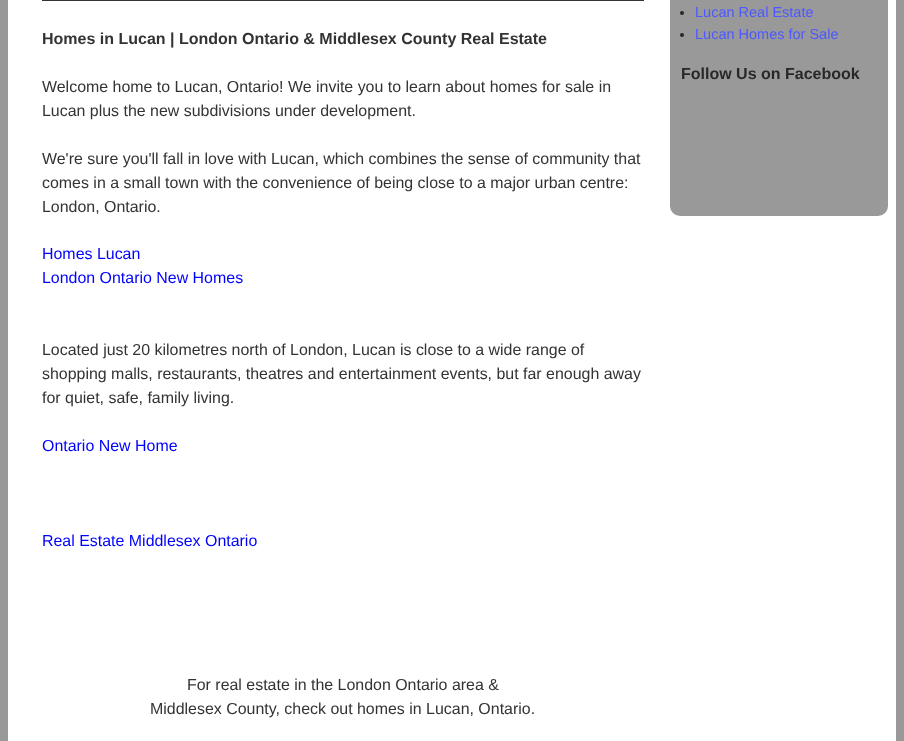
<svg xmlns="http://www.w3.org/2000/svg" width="904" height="741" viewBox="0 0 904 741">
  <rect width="100%" height="100%" fill="rgb(153,153,153)"/>
  <rect x="8" y="0" width="888" height="741" fill="rgb(255,255,255)"/>
  <rect x="42" y="0" width="602" height="1" fill="rgb(51,51,51)"/>
  <text x="42" y="44" font-family="Liberation Sans" font-size="16" font-weight="bold" fill="rgb(51,51,51)">Homes in Lucan | London Ontario &amp; Middlesex County Real Estate</text>
  <g font-family="Liberation Sans" font-size="15.95" fill="rgb(51,51,51)">
    <text>
      <tspan x="42" y="92">Welcome home to Lucan, Ontario! We invite you to learn about homes for sale in</tspan>
      <tspan x="42" y="116">Lucan plus the new subdivisions under development.</tspan>
    </text>
    <text>
      <tspan x="42" y="164">We're sure you'll fall in love with Lucan, which combines the sense of community that</tspan>
      <tspan x="42" y="188">comes in a small town with the convenience of being close to a major urban centre:</tspan>
      <tspan x="42" y="212">London, Ontario.</tspan>
    </text>
  </g>
  <g font-family="Liberation Sans" font-size="15.95" fill="rgb(0,0,255)">
    <text>
      <tspan x="42" y="259">Homes Lucan</tspan>
      <tspan x="42" y="283">London Ontario New Homes</tspan>
    </text>
  </g>
  <g font-family="Liberation Sans" font-size="15.95" fill="rgb(51,51,51)">
    <text>
      <tspan x="42" y="355">Located just 20 kilometres north of London, Lucan is close to a wide range of</tspan>
      <tspan x="42" y="379">shopping malls, restaurants, theatres and entertainment events, but far enough away</tspan>
      <tspan x="42" y="403">for quiet, safe, family living.</tspan>
    </text>
  </g>
  <g font-family="Liberation Sans" font-size="15.95" fill="rgb(0,0,255)">
    <text x="42" y="451">Ontario New Home</text>
    <text x="42" y="546">Real Estate Middlesex Ontario</text>
  </g>
  <g font-family="Liberation Sans" font-size="15.95" fill="rgb(51,51,51)">
    <text x="187" y="690">For real estate in the London Ontario area &amp;</text>
    <text x="150" y="714">Middlesex County, check out homes in Lucan, Ontario.</text>
  </g>
  <rect x="670" y="-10" width="218" height="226" rx="10" fill="rgb(153,153,153)"/>
  <circle cx="682" cy="13" r="2" fill="rgb(40,40,40)"/>
  <text x="695" y="17" font-family="Liberation Sans" font-size="14.5" fill="rgb(77,88,255)">Lucan Real Estate</text>
  <circle cx="682" cy="35" r="2" fill="rgb(40,40,40)"/>
  <text x="695" y="39" font-family="Liberation Sans" font-size="14.5" fill="rgb(77,88,255)">Lucan Homes for Sale</text>
  <text x="681" y="79" font-family="Liberation Sans" font-size="16" font-weight="bold" fill="rgb(40,40,40)">Follow Us on Facebook</text>
</svg>
